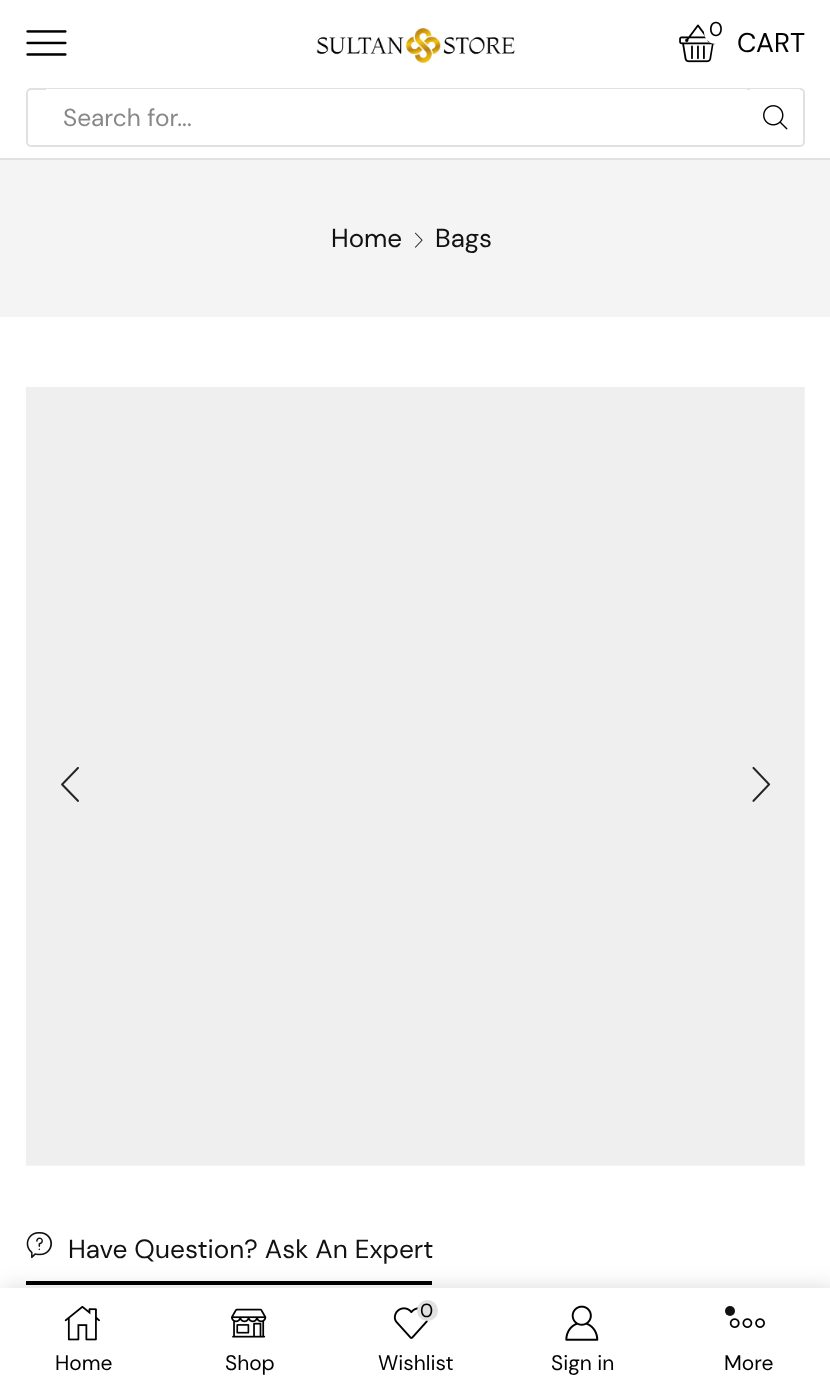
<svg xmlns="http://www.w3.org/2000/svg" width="830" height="1396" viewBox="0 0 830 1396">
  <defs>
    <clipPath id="clip1"><rect x="28" y="89" width="775" height="56" rx="4"/></clipPath>
  </defs>
  <rect width="100%" height="100%" fill="rgb(255,255,255)"/>
  <image x="26" y="30" width="41" height="26" href="pic1.png"/>
  <image x="316" y="28" width="199" height="35" href="pic2.png"/>
  <image x="679" y="24" width="38" height="39" href="pic3.png"/>
  <rect x="704" y="19" width="24" height="25" rx="12" fill="rgb(255,255,255)"/>
  <text x="709" y="36" font-family="DM Sans" font-size="20" fill="rgb(0,0,0)">0</text>
  <text x="737" y="52" font-family="DM Sans" font-size="27" fill="rgb(0,0,0)">CART</text>
  <rect x="27" y="89" width="777" height="57" rx="4" fill="none" stroke="rgb(225,225,225)" stroke-width="2"/>
  <rect x="46" y="89" width="701" height="1" fill="rgb(255,255,255)"/>
  <text x="63" y="126" font-family="DM Sans" font-size="24.5" fill="rgb(136,136,136)">Search for...</text>
  <g clip-path="url(#clip1)">
    <rect x="747" y="89" width="56" height="56" rx="5" fill="rgb(255,255,255)"/>
  </g>
  <image x="763" y="105" width="25" height="25" href="pic4.png"/>
  <rect x="0" y="160" width="830" height="157" fill="rgb(244,244,244)"/>
  <rect x="0" y="158" width="830" height="2" fill="rgb(225,225,225)"/>
  <text x="331" y="247" font-family="DM Sans" font-size="26" fill="rgb(17,17,17)">Home</text>
  <image x="415" y="232" width="8" height="16" href="pic5.png"/>
  <text x="435" y="247" font-family="DM Sans" font-size="26" fill="rgb(17,17,17)">Bags</text>
  <image x="26" y="387" width="779" height="779" href="pic6.png"/>
  <image x="61" y="767" width="18" height="35" href="pic7.png"/>
  <image x="752" y="766" width="19" height="36" href="pic8.png"/>
  <rect x="26" y="1281" width="406" height="4" fill="rgb(0,0,0)"/>
  <image x="26" y="1232" width="27" height="27" href="pic9.png"/>
  <text x="68" y="1258" font-family="DM Sans" font-size="26.2" fill="rgb(17,17,17)">Have Question? Ask An Expert</text>
  <rect x="4" y="1288" width="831" height="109" fill="rgba(0,0,0,0.15)" filter="blur(10.5px)"/>
  <rect x="0" y="1288" width="830" height="108" fill="rgb(255,255,255)"/>
  <image x="64" y="1305" width="36" height="36" href="pic10.png"/>
  <text x="55" y="1370" font-family="DM Sans" font-size="21" fill="rgb(0,0,0)">Home</text>
  <image x="231" y="1308" width="36" height="30" href="pic11.png"/>
  <text x="225" y="1370" font-family="DM Sans" font-size="21" fill="rgb(0,0,0)">Shop</text>
  <image x="393" y="1307" width="36" height="32" href="pic12.png"/>
  <circle cx="427.5" cy="1310.5" r="10.5" fill="rgb(225,225,225)"/>
  <text x="420" y="1317" font-family="DM Sans" font-size="19" fill="rgb(0,0,0)">0</text>
  <text x="378" y="1370" font-family="DM Sans" font-size="21" fill="rgb(0,0,0)">Wishlist</text>
  <image x="565" y="1305" width="34" height="36" href="pic13.png"/>
  <text x="551" y="1370" font-family="DM Sans" font-size="21" fill="rgb(0,0,0)">Sign in</text>
  <circle cx="730" cy="1311" r="5" fill="rgb(17,17,17)"/>
  <image x="729" y="1318" width="36" height="10" href="pic14.png"/>
  <text x="724" y="1370" font-family="DM Sans" font-size="21" fill="rgb(0,0,0)">More</text>
</svg>
